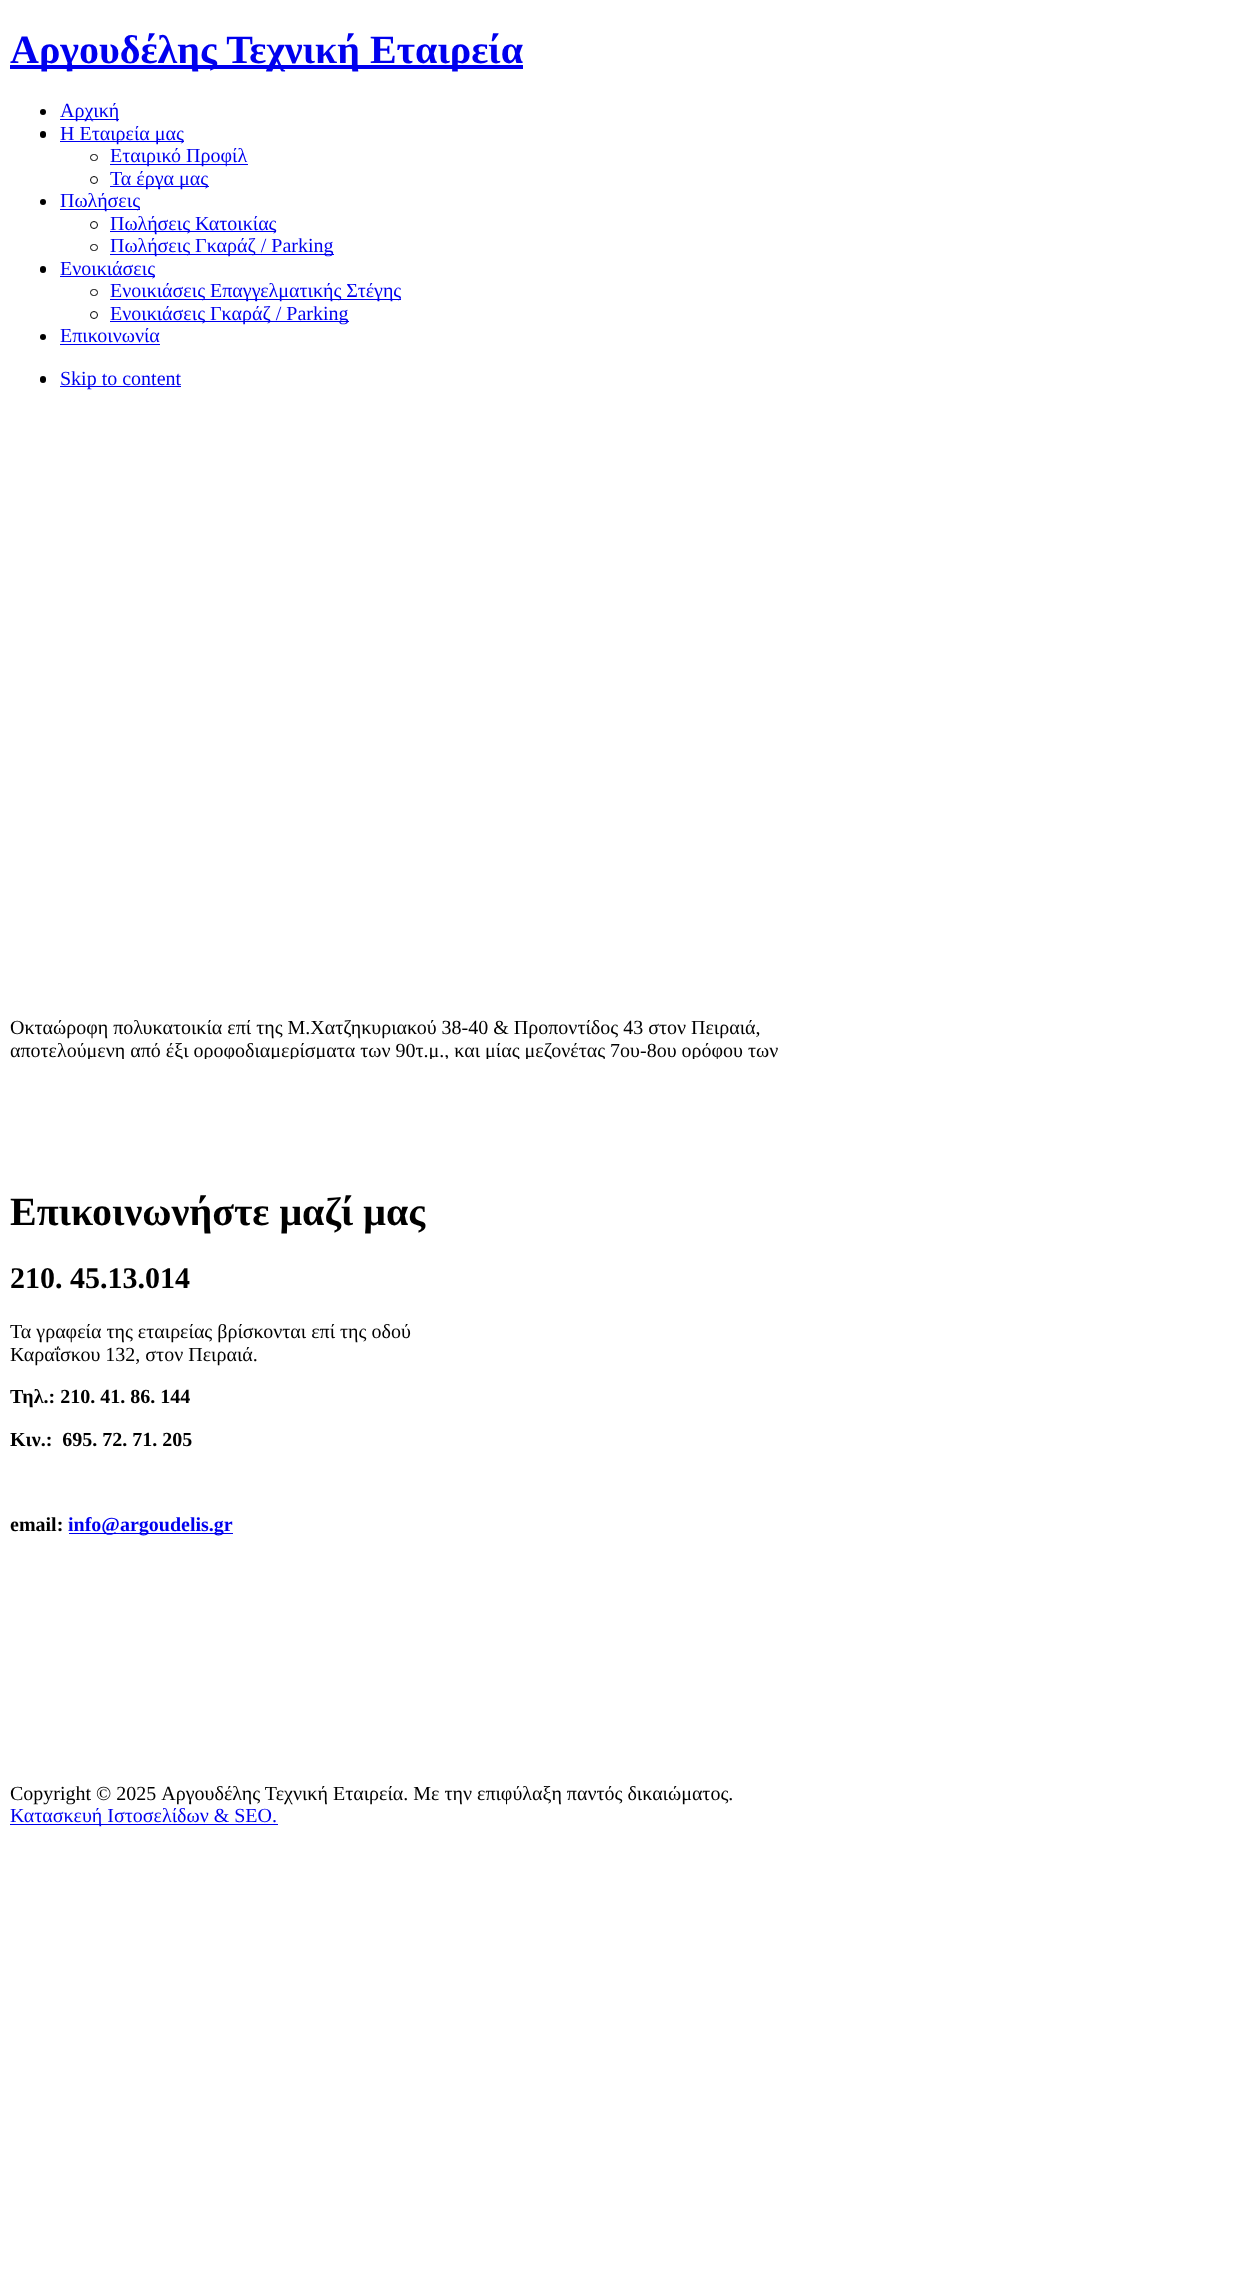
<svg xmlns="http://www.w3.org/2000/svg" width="1259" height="2294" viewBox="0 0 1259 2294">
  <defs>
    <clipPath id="clip1"><rect x="10" y="996" width="779" height="63"/></clipPath>
  </defs>
  <rect width="100%" height="100%" fill="rgb(255,255,255)"/>
  <rect x="10" y="65" width="513" height="4" fill="rgb(0,0,238)"/>
  <text x="10" y="63" font-family="Liberation Serif" font-size="40" font-weight="bold" fill="rgb(0,0,238)">Αργουδέλης Τεχνική Εταιρεία</text>
  <circle cx="43" cy="112" r="3" fill="rgb(0,0,0)"/>
  <rect x="60" y="119" width="59" height="1" fill="rgb(0,0,238)"/>
  <text x="60" y="117" font-family="Liberation Serif" font-size="20" fill="rgb(0,0,238)">Αρχική</text>
  <rect x="40" y="131" width="6" height="7" rx="3" fill="rgb(0,0,0)"/>
  <rect x="60" y="141" width="124" height="1" fill="rgb(0,0,238)"/>
  <text x="60" y="140" font-family="Liberation Serif" font-size="20" fill="rgb(0,0,238)">Η Εταιρεία μας</text>
  <rect x="90.5" y="154.5" width="7" height="6" rx="3" fill="none" stroke="rgb(0,0,0)"/>
  <rect x="110" y="164" width="138" height="1" fill="rgb(0,0,238)"/>
  <text x="110" y="162" font-family="Liberation Serif" font-size="20" fill="rgb(0,0,238)">Εταιρικό Προφίλ</text>
  <circle cx="94" cy="180" r="3.5" fill="none" stroke="rgb(0,0,0)"/>
  <rect x="110" y="186" width="99" height="1" fill="rgb(0,0,238)"/>
  <text x="110" y="185" font-family="Liberation Serif" font-size="20" fill="rgb(0,0,238)">Τα έργα μας</text>
  <circle cx="43" cy="202" r="3" fill="rgb(0,0,0)"/>
  <rect x="60" y="209" width="80" height="1" fill="rgb(0,0,238)"/>
  <text x="60" y="207" font-family="Liberation Serif" font-size="20" fill="rgb(0,0,238)">Πωλήσεις</text>
  <circle cx="94" cy="225" r="3.5" fill="none" stroke="rgb(0,0,0)"/>
  <rect x="110" y="231" width="166" height="1" fill="rgb(0,0,238)"/>
  <text x="110" y="230" font-family="Liberation Serif" font-size="20" fill="rgb(0,0,238)">Πωλήσεις Κατοικίας</text>
  <rect x="90.5" y="244.5" width="7" height="6" rx="3" fill="none" stroke="rgb(0,0,0)"/>
  <rect x="110" y="254" width="224" height="1" fill="rgb(0,0,238)"/>
  <text x="110" y="252" font-family="Liberation Serif" font-size="20" fill="rgb(0,0,238)">Πωλήσεις Γκαράζ / Parking</text>
  <rect x="40" y="266" width="6" height="7" rx="3" fill="rgb(0,0,0)"/>
  <rect x="60" y="276" width="95" height="1" fill="rgb(0,0,238)"/>
  <text x="60" y="275" font-family="Liberation Serif" font-size="20" fill="rgb(0,0,238)">Ενοικιάσεις</text>
  <rect x="90.5" y="289.5" width="7" height="6" rx="3" fill="none" stroke="rgb(0,0,0)"/>
  <rect x="110" y="299" width="291" height="1" fill="rgb(0,0,238)"/>
  <text x="110" y="297" font-family="Liberation Serif" font-size="20" fill="rgb(0,0,238)">Ενοικιάσεις Επαγγελματικής Στέγης</text>
  <circle cx="94" cy="315" r="3.5" fill="none" stroke="rgb(0,0,0)"/>
  <rect x="110" y="321" width="239" height="1" fill="rgb(0,0,238)"/>
  <text x="110" y="320" font-family="Liberation Serif" font-size="20" fill="rgb(0,0,238)">Ενοικιάσεις Γκαράζ / Parking</text>
  <circle cx="43" cy="337" r="3" fill="rgb(0,0,0)"/>
  <text x="60" y="342" font-family="Liberation Serif" font-size="20" fill="rgb(0,0,238)">Επικοινωνία</text>
  <rect x="60" y="344" width="100" height="1" fill="rgb(0,0,238)"/>
  <rect x="40" y="376" width="6" height="7" rx="3" fill="rgb(0,0,0)"/>
  <rect x="60" y="386" width="121" height="1" fill="rgb(0,0,238)"/>
  <text x="60" y="385" font-family="Liberation Serif" font-size="20" fill="rgb(0,0,238)">Skip to content</text>
  <text x="10" y="1034" font-family="Liberation Serif" font-size="20" fill="rgb(0,0,0)">Οκταώροφη πολυκατοικία επί της Μ.Χατζηκυριακού 38-40 &amp; Προποντίδος 43 στον Πειραιά,</text>
  <g clip-path="url(#clip1)">
    <text x="10" y="1057" font-family="Liberation Serif" font-size="20" fill="rgb(0,0,0)">αποτελούμενη από έξι οροφοδιαμερίσματα των 90τ.μ., και μίας μεζονέτας 7ου-8ου ορόφου των</text>
  </g>
  <text x="10" y="1225" font-family="Liberation Serif" font-size="40" font-weight="bold" fill="rgb(0,0,0)">Επικοινωνήστε μαζί μας</text>
  <text x="10" y="1288" font-family="Liberation Serif" font-size="30" font-weight="bold" fill="rgb(0,0,0)">210. 45.13.014</text>
  <g font-family="Liberation Serif" font-size="20" fill="rgb(0,0,0)">
    <text>
      <tspan x="10" y="1338">Τα γραφεία της εταιρείας βρίσκονται επί της οδού</tspan>
      <tspan x="10" y="1361">Καραΐσκου 132, στον Πειραιά.</tspan>
    </text>
  </g>
  <g font-family="Liberation Serif" font-size="20" font-weight="bold" fill="rgb(0,0,0)">
    <text x="10" y="1403">Τηλ.: 210. 41. 86. 144</text>
    <text x="10" y="1446" xml:space="preserve">Κιν.:  695. 72. 71. 205</text>
    <text x="10" y="1531">email:</text>
  </g>
  <rect x="69" y="1533" width="164" height="1" fill="rgb(0,0,238)"/>
  <text x="68" y="1531" font-family="Liberation Serif" font-size="20" font-weight="bold" fill="rgb(0,0,238)">info@argoudelis.gr</text>
  <text x="10" y="1800" font-family="Liberation Serif" font-size="20" fill="rgb(0,0,0)">Copyright © 2025 Αργουδέλης Τεχνική Εταιρεία. Με την επιφύλαξη παντός δικαιώματος.</text>
  <rect x="10" y="1824" width="268" height="1" fill="rgb(0,0,238)"/>
  <text x="10" y="1822" font-family="Liberation Serif" font-size="20" fill="rgb(0,0,238)">Κατασκευή Ιστοσελίδων &amp; SEO.</text>
</svg>
